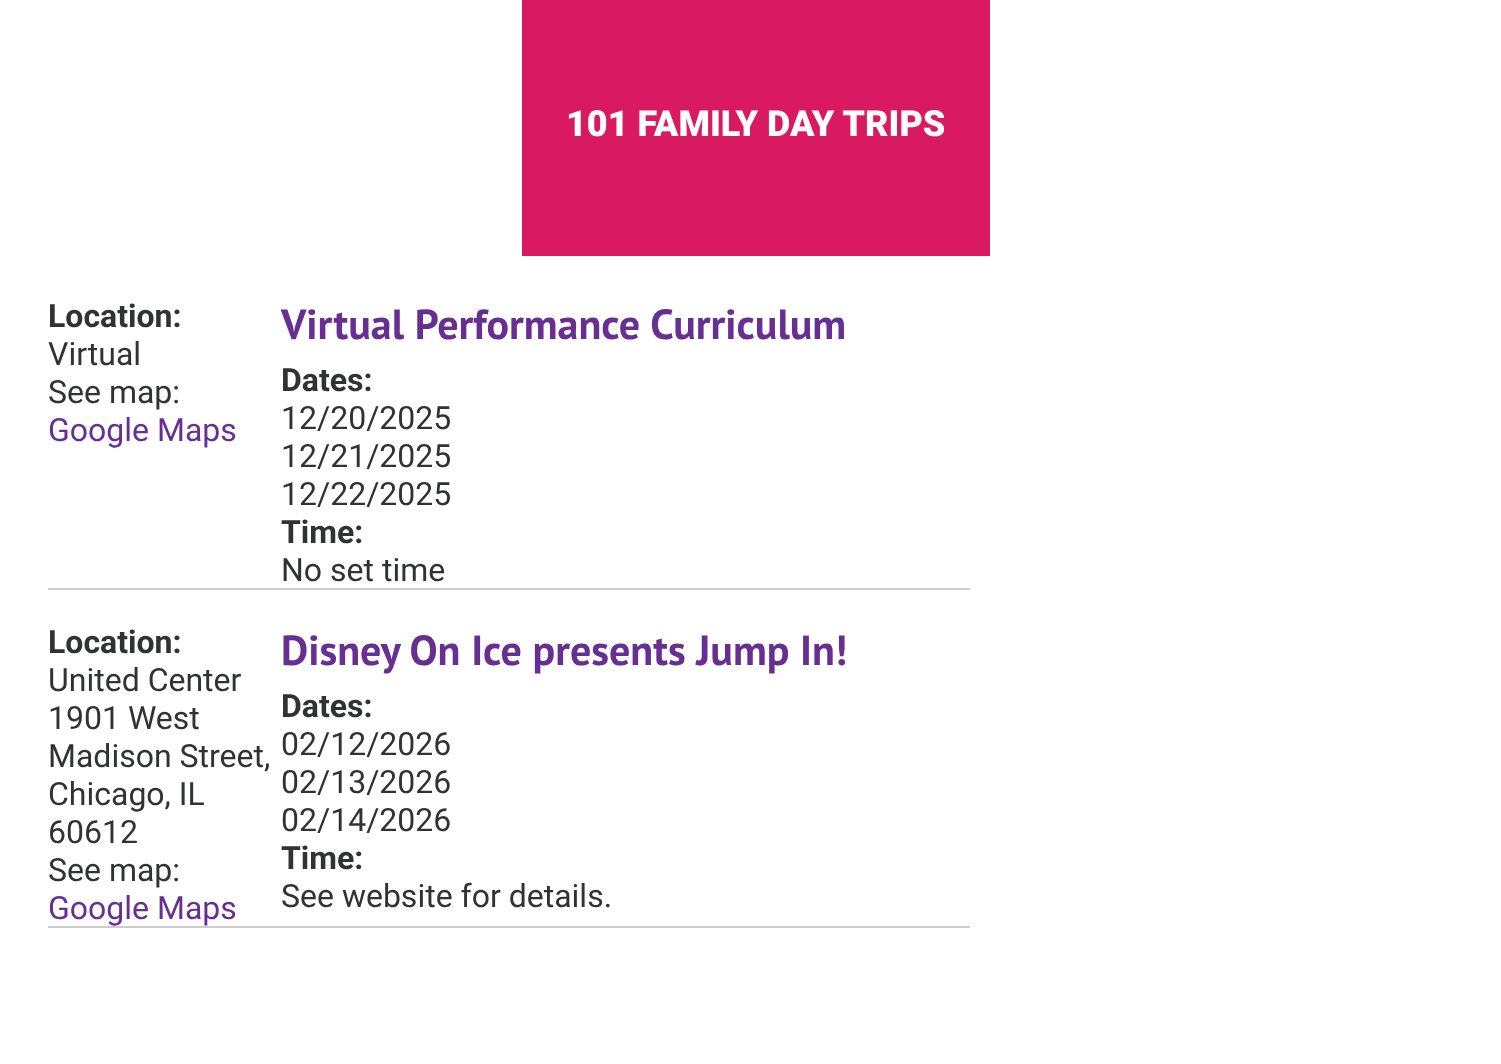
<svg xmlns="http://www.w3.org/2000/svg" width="1501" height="1064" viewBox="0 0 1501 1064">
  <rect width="100%" height="100%" fill="rgb(255,255,255)"/>
  <rect x="522" y="0" width="468" height="256" fill="rgb(217,26,96)"/>
  <text x="566" y="136" font-family="Roboto" font-size="36" font-weight="900" fill="rgb(255,255,255)">101 FAMILY DAY TRIPS</text>
  <rect x="48" y="588" width="922" height="2" fill="rgb(204,204,204)"/>
  <text x="48" y="327" font-family="Roboto" font-size="32" font-weight="bold" fill="rgb(49,51,50)">Location:</text>
  <g font-family="Roboto" font-size="32" fill="rgb(49,51,50)">
    <text>
      <tspan x="48" y="365">Virtual</tspan>
      <tspan x="48" y="403">See map:</tspan>
    </text>
  </g>
  <text x="48" y="441" font-family="Roboto" font-size="32" fill="rgb(103,47,146)">Google Maps</text>
  <text x="281" y="339" font-family="PT Sans" font-size="42" font-weight="bold" fill="rgb(103,47,146)">Virtual Performance Curriculum</text>
  <text x="281" y="391" font-family="Roboto" font-size="32" font-weight="bold" fill="rgb(49,51,50)">Dates:</text>
  <g font-family="Roboto" font-size="32" fill="rgb(49,51,50)">
    <text>
      <tspan x="281" y="429">12/20/2025</tspan>
      <tspan x="281" y="467">12/21/2025</tspan>
      <tspan x="281" y="505">12/22/2025</tspan>
    </text>
  </g>
  <text x="281" y="543" font-family="Roboto" font-size="32" font-weight="bold" fill="rgb(49,51,50)">Time:</text>
  <text x="281" y="581" font-family="Roboto" font-size="32" fill="rgb(49,51,50)">No set time</text>
  <rect x="48" y="926" width="922" height="2" fill="rgb(204,204,204)"/>
  <text x="48" y="653" font-family="Roboto" font-size="32" font-weight="bold" fill="rgb(49,51,50)">Location:</text>
  <g font-family="Roboto" font-size="32" fill="rgb(49,51,50)">
    <text>
      <tspan x="48" y="691">United Center</tspan>
      <tspan x="48" y="729">1901 West</tspan>
      <tspan x="48" y="767">Madison Street,</tspan>
      <tspan x="48" y="805">Chicago, IL</tspan>
      <tspan x="48" y="843">60612</tspan>
      <tspan x="48" y="881">See map:</tspan>
    </text>
  </g>
  <text x="48" y="919" font-family="Roboto" font-size="32" fill="rgb(103,47,146)">Google Maps</text>
  <text x="281" y="665" font-family="PT Sans" font-size="42" font-weight="bold" fill="rgb(103,47,146)">Disney On Ice presents Jump In!</text>
  <text x="281" y="717" font-family="Roboto" font-size="32" font-weight="bold" fill="rgb(49,51,50)">Dates:</text>
  <g font-family="Roboto" font-size="32" fill="rgb(49,51,50)">
    <text>
      <tspan x="281" y="755">02/12/2026</tspan>
      <tspan x="281" y="793">02/13/2026</tspan>
      <tspan x="281" y="831">02/14/2026</tspan>
    </text>
  </g>
  <text x="281" y="869" font-family="Roboto" font-size="32" font-weight="bold" fill="rgb(49,51,50)">Time:</text>
  <text x="281" y="907" font-family="Roboto" font-size="32" fill="rgb(49,51,50)">See website for details.</text>
</svg>
